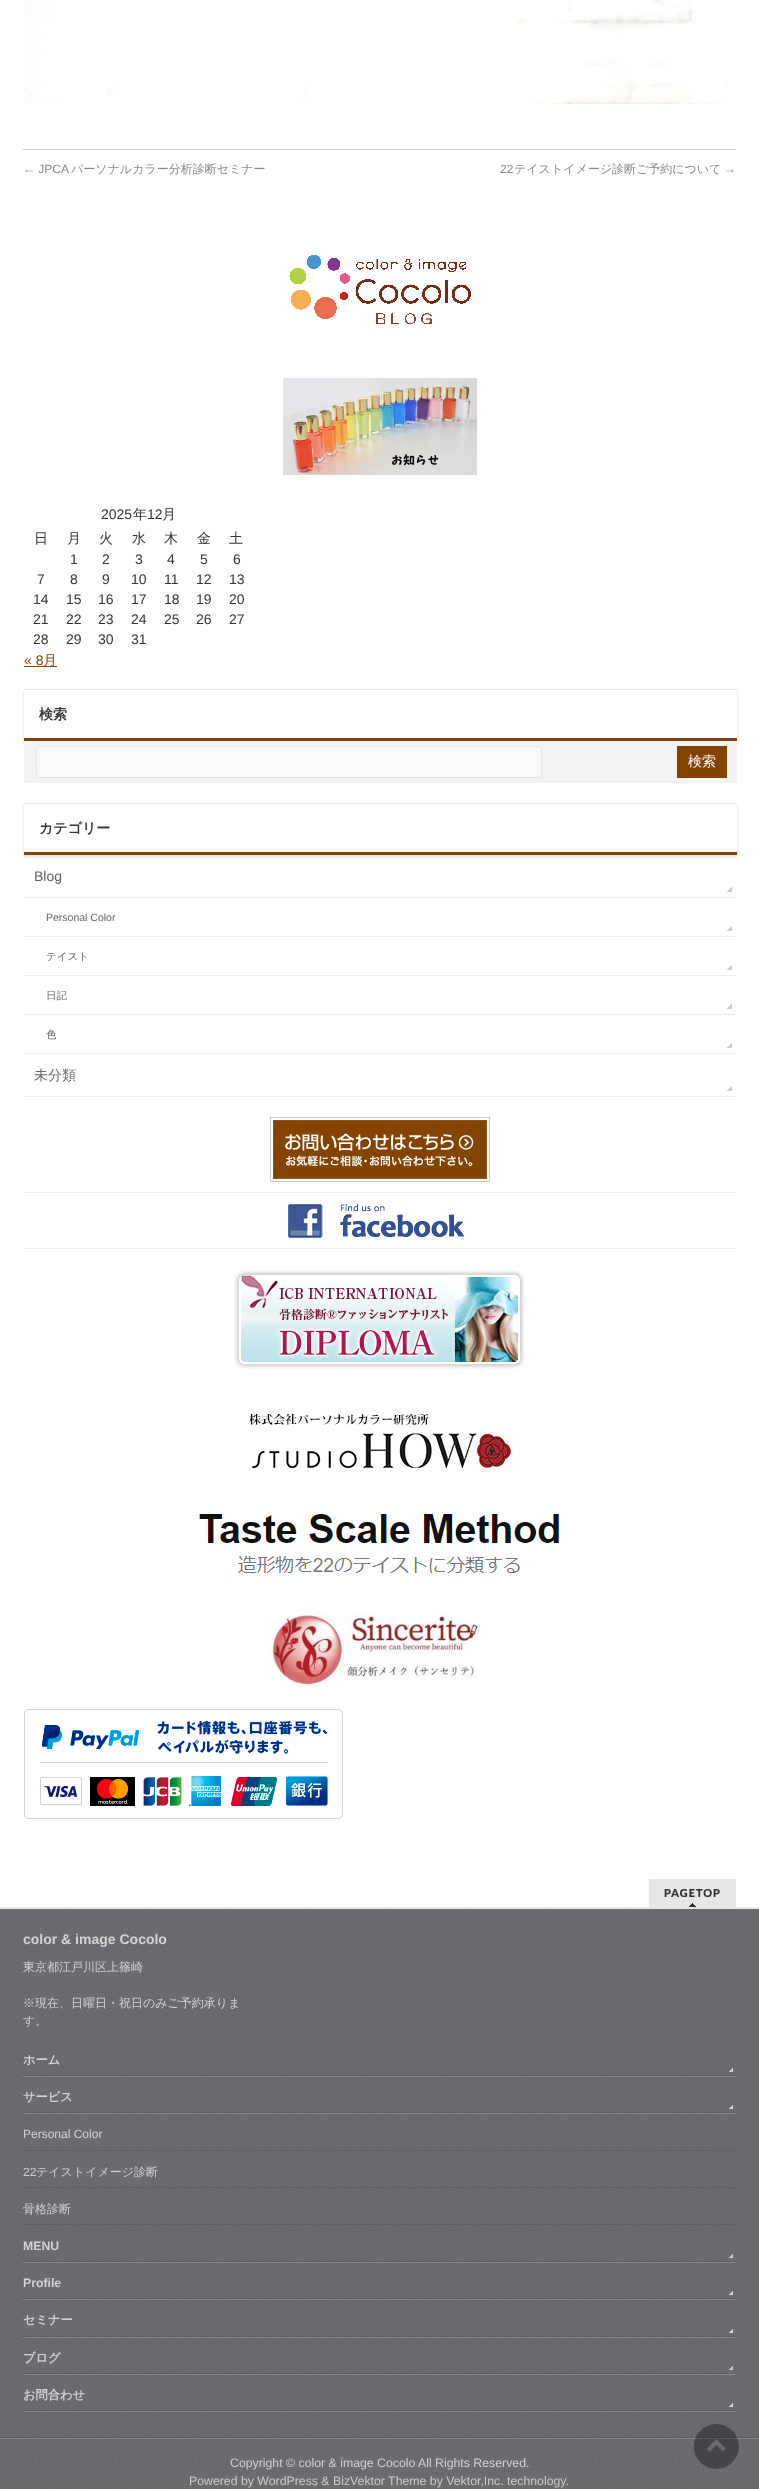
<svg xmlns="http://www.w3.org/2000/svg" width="759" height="2489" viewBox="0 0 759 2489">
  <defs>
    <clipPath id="clip1"><path d="M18 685H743V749H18ZM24 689H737V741H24Z" clip-rule="evenodd"/></clipPath>
    <clipPath id="clip2"><path d="M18 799H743V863H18ZM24 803H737V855H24Z" clip-rule="evenodd"/></clipPath>
  </defs>
  <rect width="100%" height="100%" fill="rgb(255,255,255)"/>
  <image x="24" y="0" width="707" height="104" href="pic1.png"/>
  <rect x="23" y="149" width="713" height="1" fill="rgb(204,204,204)"/>
  <text x="23" y="173" font-family="Liberation Sans" font-size="12" fill="rgb(136,136,136)">← JPCA</text>
  <text x="71" y="173" font-family="WenQuanYi Zen Hei" font-size="12" font-weight="500" fill="rgb(136,136,136)">パーソナルカラー分析診断セミナー</text>
  <text x="500" y="173" font-family="Liberation Sans" font-size="12" fill="rgb(136,136,136)">22</text>
  <text x="514" y="173" font-family="WenQuanYi Zen Hei" font-size="12" font-weight="500" fill="rgb(136,136,136)">テイストイメージ診断ご予約について</text>
  <text x="724" y="173" font-family="Liberation Sans" font-size="12" fill="rgb(136,136,136)">→</text>
  <image x="289" y="255" width="182" height="69" href="pic2.png"/>
  <image x="283" y="378" width="194" height="97" href="pic3.png"/>
  <text x="101" y="519" font-family="Liberation Sans" font-size="14" fill="rgb(51,51,51)">2025</text>
  <text x="133" y="519" font-family="WenQuanYi Zen Hei" font-size="14" font-weight="500" fill="rgb(51,51,51)">年</text>
  <text x="147" y="519" font-family="Liberation Sans" font-size="14" fill="rgb(51,51,51)">12</text>
  <g font-family="WenQuanYi Zen Hei" font-size="14" font-weight="500" fill="rgb(51,51,51)">
    <text x="162" y="519">月</text>
    <text x="34" y="543">日</text>
    <text x="67" y="543">月</text>
    <text x="99" y="543">火</text>
    <text x="132" y="543">水</text>
    <text x="164" y="543">木</text>
    <text x="197" y="543">金</text>
    <text x="229" y="543">土</text>
  </g>
  <g font-family="Liberation Sans" font-size="14" fill="rgb(51,51,51)">
    <text x="70" y="564">1</text>
    <text x="102" y="564">2</text>
    <text x="135" y="564">3</text>
    <text x="167" y="564">4</text>
    <text x="200" y="564">5</text>
    <text x="233" y="564">6</text>
    <text x="37" y="584">7</text>
    <text x="70" y="584">8</text>
    <text x="102" y="584">9</text>
    <text x="131" y="584">10</text>
    <text x="164" y="584">11</text>
    <text x="196" y="584">12</text>
    <text x="229" y="584">13</text>
    <text x="33" y="604">14</text>
    <text x="66" y="604">15</text>
    <text x="98" y="604">16</text>
    <text x="131" y="604">17</text>
    <text x="164" y="604">18</text>
    <text x="196" y="604">19</text>
    <text x="229" y="604">20</text>
    <text x="33" y="624">21</text>
    <text x="66" y="624">22</text>
    <text x="98" y="624">23</text>
    <text x="131" y="624">24</text>
    <text x="164" y="624">25</text>
    <text x="196" y="624">26</text>
    <text x="229" y="624">27</text>
    <text x="33" y="644">28</text>
    <text x="66" y="644">29</text>
    <text x="98" y="644">30</text>
    <text x="131" y="644">31</text>
  </g>
  <text x="24" y="665" font-family="Liberation Sans" font-size="14" fill="rgb(132,68,0)">« 8</text>
  <rect x="24" y="666" width="33" height="1" fill="rgb(132,68,0)"/>
  <text x="43" y="665" font-family="WenQuanYi Zen Hei" font-size="14" font-weight="500" fill="rgb(132,68,0)">月</text>
  <g clip-path="url(#clip1)">
    <rect x="24" y="691" width="713" height="52" fill="rgba(0,0,0,0.15)" filter="blur(1.5px)"/>
  </g>
  <rect x="24" y="689" width="713" height="1" fill="rgb(229,229,229)"/>
  <rect x="24" y="738" width="713" height="3" fill="rgb(132,68,0)"/>
  <text x="39" y="719" font-family="WenQuanYi Zen Hei" font-size="14" font-weight="bold" fill="rgb(51,51,51)">検索</text>
  <rect x="24" y="741" width="713" height="42" fill="rgb(243,243,243)"/>
  <rect x="36.5" y="746.5" width="505" height="31" rx="3.5" fill="rgb(249,249,249)" stroke="rgb(229,229,229)"/>
  <rect x="677" y="746" width="50" height="32" fill="rgb(132,68,0)"/>
  <text x="688" y="766" font-family="WenQuanYi Zen Hei" font-size="14" font-weight="500" fill="rgb(255,255,255)">検索</text>
  <g clip-path="url(#clip2)">
    <rect x="24" y="805" width="713" height="52" fill="rgba(0,0,0,0.15)" filter="blur(1.5px)"/>
  </g>
  <rect x="24" y="803" width="713" height="1" fill="rgb(229,229,229)"/>
  <rect x="24" y="852" width="713" height="3" fill="rgb(132,68,0)"/>
  <text x="39" y="833" font-family="WenQuanYi Zen Hei" font-size="14" font-weight="bold" fill="rgb(51,51,51)">カテゴリー</text>
  <rect x="24" y="1053" width="713" height="1" fill="rgb(238,238,238)"/>
  <image x="727" y="887" width="5" height="5" href="pic4.png"/>
  <text x="34" y="881" font-family="Liberation Sans" font-size="14" fill="rgb(102,102,102)">Blog</text>
  <rect x="24" y="897" width="713" height="1" fill="rgb(238,238,238)"/>
  <image x="727" y="926" width="5" height="5" href="pic4.png"/>
  <text x="46" y="921" font-family="Liberation Sans" font-size="10.5" fill="rgb(102,102,102)">Personal Color</text>
  <rect x="24" y="936" width="713" height="1" fill="rgb(238,238,238)"/>
  <image x="727" y="965" width="5" height="5" href="pic4.png"/>
  <text x="46" y="960" font-family="WenQuanYi Zen Hei" font-size="10.5" font-weight="500" fill="rgb(102,102,102)">テイスト</text>
  <rect x="24" y="975" width="713" height="1" fill="rgb(238,238,238)"/>
  <image x="727" y="1004" width="5" height="5" href="pic4.png"/>
  <text x="46" y="999" font-family="WenQuanYi Zen Hei" font-size="10.5" font-weight="500" fill="rgb(102,102,102)">日記</text>
  <rect x="24" y="1014" width="713" height="1" fill="rgb(238,238,238)"/>
  <image x="727" y="1043" width="5" height="5" href="pic4.png"/>
  <text x="46" y="1038" font-family="WenQuanYi Zen Hei" font-size="10.5" font-weight="500" fill="rgb(102,102,102)">色</text>
  <rect x="24" y="1096" width="713" height="1" fill="rgb(238,238,238)"/>
  <image x="727" y="1086" width="5" height="5" href="pic4.png"/>
  <text x="34" y="1080" font-family="WenQuanYi Zen Hei" font-size="14" font-weight="500" fill="rgb(102,102,102)">未分類</text>
  <rect x="273" y="1120" width="214" height="59" fill="rgb(132,68,0)"/>
  <image x="270" y="1117" width="220" height="65" href="pic5.png"/>
  <rect x="24" y="1192" width="713" height="1" fill="rgb(238,238,238)"/>
  <rect x="24" y="1248" width="713" height="1" fill="rgb(238,238,238)"/>
  <image x="288" y="1204" width="176" height="34" href="pic6.png"/>
  <image x="234" y="1270" width="291" height="99" href="pic7.png"/>
  <image x="249" y="1409" width="263" height="60" href="pic8.png"/>
  <image x="199" y="1514" width="361" height="59" href="pic9.png"/>
  <image x="270" y="1612" width="212" height="76" href="pic10.png"/>
  <image x="24" y="1709" width="319" height="110" href="pic11.png"/>
  <rect x="649" y="1879" width="87" height="28" fill="rgb(230,230,230)"/>
  <image x="689" y="1903" width="7" height="4" href="pic12.png"/>
  <text x="664" y="1897" font-family="Lato" font-size="11" font-weight="900" letter-spacing="1" fill="rgb(51,51,51)">PAGETOP</text>
  <rect x="0" y="1907" width="759" height="2" fill="rgb(230,230,230)"/>
  <image x="0" y="1909" width="759" height="528" href="pic13.png"/>
  <rect x="0" y="2437" width="759" height="1" fill="rgb(95,94,99)"/>
  <text x="23" y="1944" font-family="Liberation Sans" font-size="14" font-weight="bold" fill="rgb(210,210,211)">color &amp; image Cocolo</text>
  <g font-family="WenQuanYi Zen Hei" font-size="12" font-weight="500" fill="rgb(210,210,211)">
    <text x="23" y="1971">東京都江戸川区上篠崎</text>
    <text>
      <tspan x="23" y="2007">※現在、日曜日・祝日のみご予約承りま</tspan>
      <tspan x="23" y="2025">す。</tspan>
    </text>
  </g>
  <rect x="23" y="2076" width="713" height="1" fill="rgb(138,137,140)"/>
  <image x="729" y="2068" width="4" height="4" href="pic14.png"/>
  <rect x="23" y="2075" width="713" height="1" fill="rgb(95,94,99)"/>
  <text x="23" y="2064" font-family="WenQuanYi Zen Hei" font-size="12.25" font-weight="bold" fill="rgb(210,210,211)">ホーム</text>
  <rect x="23" y="2113" width="713" height="1" fill="rgb(138,137,140)"/>
  <image x="729" y="2105" width="4" height="4" href="pic15.png"/>
  <rect x="23" y="2112" width="713" height="1" fill="rgb(95,94,99)"/>
  <text x="23" y="2101" font-family="WenQuanYi Zen Hei" font-size="12.25" font-weight="bold" fill="rgb(210,210,211)">サービス</text>
  <rect x="23" y="2150" width="713" height="1" fill="rgb(98,97,104)"/>
  <text x="23" y="2138" font-family="Liberation Sans" font-size="12" fill="rgb(210,210,211)">Personal Color</text>
  <rect x="23" y="2187" width="713" height="1" fill="rgb(98,97,104)"/>
  <text x="23" y="2176" font-family="Liberation Sans" font-size="12" fill="rgb(210,210,211)">22</text>
  <text x="36" y="2176" font-family="WenQuanYi Zen Hei" font-size="12" font-weight="500" fill="rgb(210,210,211)">テイストイメージ診断</text>
  <rect x="23" y="2224" width="713" height="1" fill="rgb(98,97,104)"/>
  <text x="23" y="2213" font-family="WenQuanYi Zen Hei" font-size="12" font-weight="500" fill="rgb(210,210,211)">骨格診断</text>
  <rect x="23" y="2262" width="713" height="1" fill="rgb(138,137,140)"/>
  <image x="729" y="2254" width="4" height="4" href="pic16.png"/>
  <rect x="23" y="2261" width="713" height="1" fill="rgb(95,94,99)"/>
  <text x="23" y="2250" font-family="Liberation Sans" font-size="12.25" font-weight="bold" fill="rgb(210,210,211)">MENU</text>
  <rect x="23" y="2299" width="713" height="1" fill="rgb(138,137,140)"/>
  <image x="729" y="2291" width="4" height="4" href="pic17.png"/>
  <rect x="23" y="2298" width="713" height="1" fill="rgb(95,94,99)"/>
  <text x="23" y="2287" font-family="Liberation Sans" font-size="12.25" font-weight="bold" fill="rgb(210,210,211)">Profile</text>
  <rect x="23" y="2337" width="713" height="1" fill="rgb(138,137,140)"/>
  <image x="729" y="2329" width="4" height="4" href="pic18.png"/>
  <rect x="23" y="2336" width="713" height="1" fill="rgb(95,94,99)"/>
  <text x="23" y="2324" font-family="WenQuanYi Zen Hei" font-size="12.25" font-weight="bold" fill="rgb(210,210,211)">セミナー</text>
  <rect x="23" y="2374" width="713" height="1" fill="rgb(138,137,140)"/>
  <image x="729" y="2366" width="4" height="4" href="pic19.png"/>
  <rect x="23" y="2373" width="713" height="1" fill="rgb(95,94,99)"/>
  <text x="23" y="2362" font-family="WenQuanYi Zen Hei" font-size="12.25" font-weight="bold" fill="rgb(210,210,211)">ブログ</text>
  <rect x="23" y="2411" width="713" height="1" fill="rgb(138,137,140)"/>
  <image x="729" y="2403" width="4" height="4" href="pic20.png"/>
  <rect x="23" y="2410" width="713" height="1" fill="rgb(95,94,99)"/>
  <text x="23" y="2399" font-family="WenQuanYi Zen Hei" font-size="12.25" font-weight="bold" fill="rgb(210,210,211)">お問合わせ</text>
  <image x="0" y="2439" width="759" height="50" href="pic21.png"/>
  <rect x="0" y="2438" width="759" height="1" fill="rgb(138,137,140)"/>
  <g font-family="Liberation Sans" font-size="12.3" fill="rgb(210,210,211)">
    <text x="230" y="2467">Copyright © color &amp; image Cocolo</text>
    <text x="418" y="2467">All Rights Reserved.</text>
  </g>
  <text x="189" y="2485" font-family="Liberation Sans" font-size="12.3" fill="rgb(204,204,204)">Powered by WordPress &amp; BizVektor Theme by Vektor,Inc. technology.</text>
  <image x="694" y="2424" width="45" height="45" href="pic22.png"/>
</svg>
